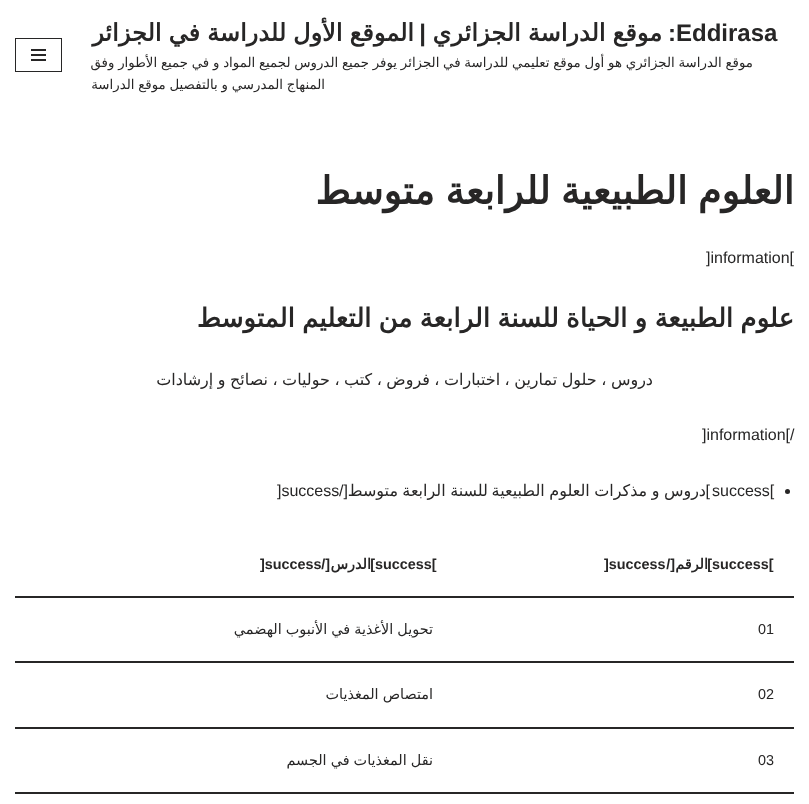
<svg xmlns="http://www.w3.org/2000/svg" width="809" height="804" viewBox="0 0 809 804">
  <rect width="100%" height="100%" fill="rgb(255,255,255)"/>
  <text x="676" y="41" font-family="Liberation Sans" font-size="24" font-weight="bold" fill="rgb(39,38,38)">Eddirasa</text>
  <text x="676" y="41" font-family="Liberation Sans" font-size="24" font-weight="bold" direction="rtl" fill="rgb(39,38,38)">:</text>
  <text x="662" y="41" word-spacing="-0.6" font-family="DejaVu Sans" font-size="24" font-weight="bold" direction="rtl" fill="rgb(39,38,38)">موقع الدراسة الجزائري</text>
  <text x="426" y="41" font-family="Liberation Sans" font-size="24" font-weight="bold" direction="rtl" fill="rgb(39,38,38)">|</text>
  <text x="414" y="41" word-spacing="-0.6" font-family="DejaVu Sans" font-size="24" font-weight="bold" direction="rtl" fill="rgb(39,38,38)">الموقع الأول للدراسة في الجزائر</text>
  <g font-family="DejaVu Sans" font-size="13.35" direction="rtl" fill="rgb(39,38,38)">
    <text x="753" y="67" word-spacing="-0.5">موقع الدراسة الجزائري هو أول موقع تعليمي للدراسة في الجزائر يوفر جميع الدروس لجميع المواد و في جميع الأطوار وفق</text>
    <text x="325" y="89" word-spacing="-0.5">المنهاج المدرسي و بالتفصيل موقع الدراسة</text>
  </g>
  <rect x="15.5" y="38.5" width="46" height="33" fill="none" stroke="rgb(39,38,38)"/>
  <rect x="31" y="49" width="15" height="2" fill="rgb(39,38,38)"/>
  <rect x="31" y="54" width="15" height="2" fill="rgb(39,38,38)"/>
  <rect x="31" y="59" width="15" height="2" fill="rgb(39,38,38)"/>
  <text x="794" y="204" word-spacing="-1.5" font-family="DejaVu Sans" font-size="38" font-weight="bold" direction="rtl" fill="rgb(39,38,38)">العلوم الطبيعية للرابعة متوسط</text>
  <text x="706" y="263" font-family="Liberation Sans" font-size="16" fill="rgb(39,38,38)">]information[</text>
  <text x="794" y="327" word-spacing="-1" font-family="DejaVu Sans" font-size="26" font-weight="bold" direction="rtl" fill="rgb(39,38,38)">علوم الطبيعة و الحياة للسنة الرابعة من التعليم المتوسط</text>
  <text x="653" y="385" word-spacing="-0.6" font-family="DejaVu Sans" font-size="16" direction="rtl" fill="rgb(39,38,38)">دروس ، حلول تمارين ، اختبارات ، فروض ، كتب ، حوليات ، نصائح و إرشادات</text>
  <text x="702" y="440" font-family="Liberation Sans" font-size="16" fill="rgb(39,38,38)">]information[/</text>
  <g font-family="DejaVu Sans" font-size="16" direction="rtl" fill="rgb(39,38,38)">
    <text x="706" y="496" word-spacing="-0.6">دروس و مذكرات العلوم الطبيعية</text>
    <text x="488" y="496" word-spacing="-0.6">للسنة الرابعة</text>
    <text x="398" y="496">متوسط</text>
  </g>
  <text x="348" y="496" font-family="Liberation Sans" font-size="16" direction="rtl" fill="rgb(39,38,38)">[/</text>
  <text x="277" y="496" font-family="Liberation Sans" font-size="16" fill="rgb(39,38,38)">]success</text>
  <circle cx="787.5" cy="491.5" r="2.5" fill="rgb(39,38,38)"/>
  <text x="712" y="496" font-family="Liberation Sans" font-size="16" fill="rgb(39,38,38)">success[</text>
  <text x="710" y="496" font-family="Liberation Sans" font-size="16" direction="rtl" fill="rgb(39,38,38)">]</text>
  <rect x="15" y="596" width="779" height="2" fill="rgb(39,38,38)"/>
  <text x="712" y="569" font-family="Liberation Sans" font-size="14.4" font-weight="bold" fill="rgb(39,38,38)">success[</text>
  <text x="712" y="569" font-family="Liberation Sans" font-size="14.4" font-weight="bold" direction="rtl" fill="rgb(39,38,38)">]</text>
  <text x="708" y="569" font-family="DejaVu Sans" font-size="14.4" font-weight="bold" direction="rtl" fill="rgb(39,38,38)">الرقم</text>
  <text x="675" y="569" font-family="Liberation Sans" font-size="14.4" font-weight="bold" direction="rtl" fill="rgb(39,38,38)">[/</text>
  <g font-family="Liberation Sans" font-size="14.4" font-weight="bold" fill="rgb(39,38,38)">
    <text x="604" y="569">]success</text>
    <text x="375" y="569">success[</text>
  </g>
  <text x="375" y="569" font-family="Liberation Sans" font-size="14.4" font-weight="bold" direction="rtl" fill="rgb(39,38,38)">]</text>
  <text x="371" y="569" font-family="DejaVu Sans" font-size="14.4" font-weight="bold" direction="rtl" fill="rgb(39,38,38)">الدرس</text>
  <text x="330" y="569" font-family="Liberation Sans" font-size="14.4" font-weight="bold" direction="rtl" fill="rgb(39,38,38)">[/</text>
  <text x="260" y="569" font-family="Liberation Sans" font-size="14.4" font-weight="bold" fill="rgb(39,38,38)">]success</text>
  <rect x="15" y="661" width="779" height="2" fill="rgb(39,38,38)"/>
  <text x="758" y="634" font-family="Liberation Sans" font-size="14.4" fill="rgb(39,38,38)">01</text>
  <text x="433" y="634" word-spacing="-0.5" font-family="DejaVu Sans" font-size="14.4" direction="rtl" fill="rgb(39,38,38)">تحويل الأغذية في الأنبوب الهضمي</text>
  <rect x="15" y="727" width="779" height="2" fill="rgb(39,38,38)"/>
  <text x="758" y="699" font-family="Liberation Sans" font-size="14.4" fill="rgb(39,38,38)">02</text>
  <text x="433" y="699" word-spacing="-0.5" font-family="DejaVu Sans" font-size="14.4" direction="rtl" fill="rgb(39,38,38)">امتصاص المغذيات</text>
  <rect x="15" y="792" width="779" height="2" fill="rgb(39,38,38)"/>
  <text x="758" y="765" font-family="Liberation Sans" font-size="14.4" fill="rgb(39,38,38)">03</text>
  <text x="433" y="765" word-spacing="-0.5" font-family="DejaVu Sans" font-size="14.4" direction="rtl" fill="rgb(39,38,38)">نقل المغذيات في الجسم</text>
</svg>
